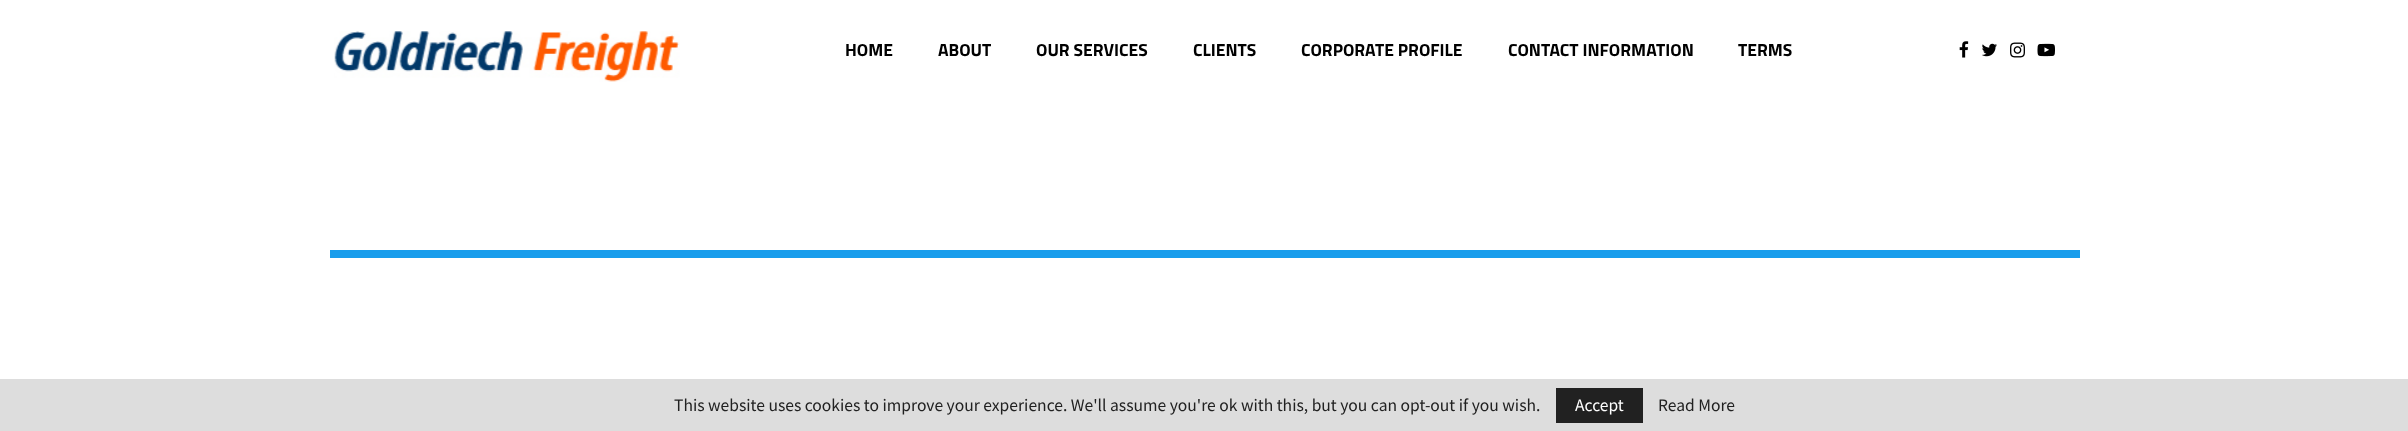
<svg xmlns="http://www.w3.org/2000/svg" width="2408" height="431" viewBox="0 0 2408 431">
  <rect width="100%" height="100%" fill="rgb(255,255,255)"/>
  <image x="334" y="31" width="346" height="51" href="pic1.png"/>
  <g font-family="Titillium Web" font-size="17.5" font-weight="bold" fill="rgb(0,0,0)">
    <text x="845" y="56">HOME</text>
    <text x="938" y="56">ABOUT</text>
    <text x="1036" y="56">OUR SERVICES</text>
    <text x="1193" y="56">CLIENTS</text>
    <text x="1301" y="56">CORPORATE PROFILE</text>
    <text x="1508" y="56">CONTACT INFORMATION</text>
    <text x="1738" y="56">TERMS</text>
  </g>
  <image x="1959" y="41" width="10" height="17" href="pic2.png"/>
  <image x="1982" y="43" width="15" height="14" href="pic3.png"/>
  <image x="2010" y="42" width="15" height="16" href="pic4.png"/>
  <image x="2037" y="43" width="18" height="14" href="pic5.png"/>
  <rect x="330" y="250" width="1750" height="8" fill="rgb(25,157,236)"/>
  <rect x="0" y="379" width="2408" height="52" fill="rgb(221,221,221)"/>
  <text x="674" y="411" font-family="Source Sans Pro" font-size="17.5" fill="rgb(33,33,33)">This website uses cookies to improve your experience. We'll assume you're ok with this, but you can opt-out if you wish.</text>
  <rect x="1556" y="388" width="87" height="35" fill="rgb(33,33,33)"/>
  <text x="1575" y="411" font-family="Source Sans Pro" font-size="17.5" fill="rgb(255,255,255)">Accept</text>
  <text x="1658" y="411" font-family="Source Sans Pro" font-size="17.5" fill="rgb(33,33,33)">Read More</text>
</svg>
